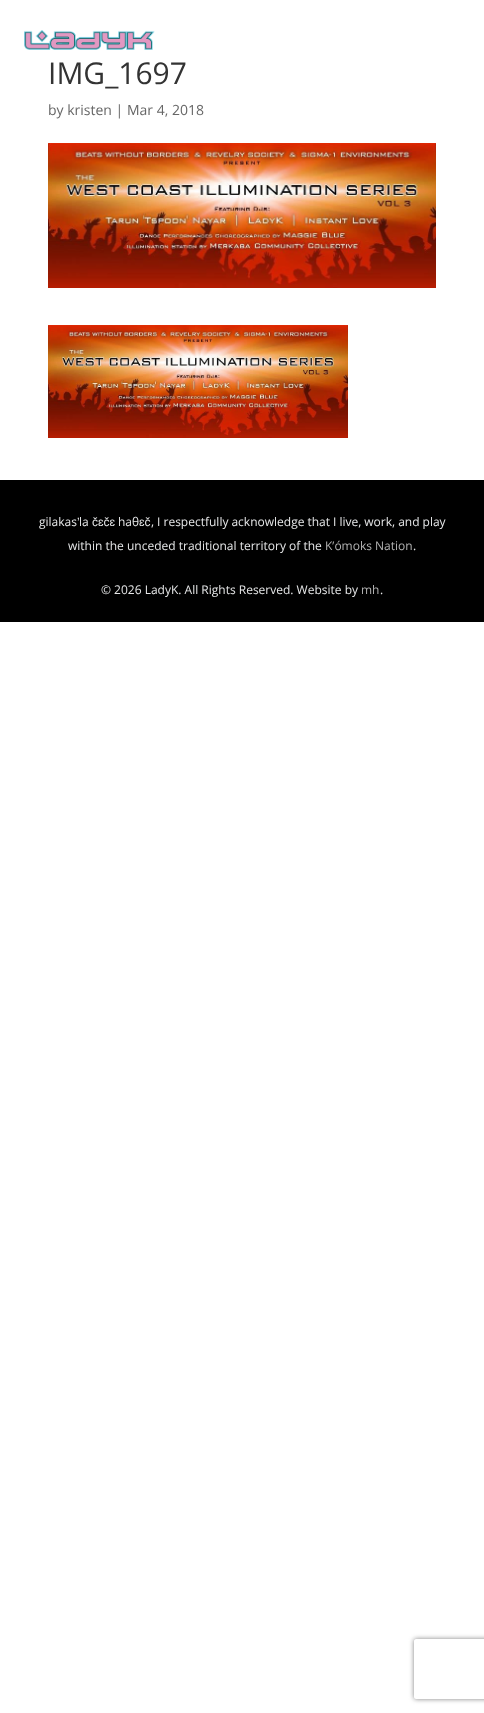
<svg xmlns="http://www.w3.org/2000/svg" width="484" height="1713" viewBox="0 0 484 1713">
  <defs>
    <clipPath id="clip1"><path d="M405 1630H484V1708H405ZM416 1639H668C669 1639 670 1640 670 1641V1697C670 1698 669 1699 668 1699H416C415 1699 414 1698 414 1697V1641C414 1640 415 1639 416 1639Z" clip-rule="evenodd"/></clipPath>
  </defs>
  <rect width="100%" height="100%" fill="rgb(255,255,255)"/>
  <image x="24" y="30" width="131" height="20" href="pic1.png"/>
  <text x="48" y="84" font-family="Open Sans" font-size="30" fill="rgb(51,51,51)">IMG_1697</text>
  <text x="48" y="115" font-family="Open Sans" font-size="14" fill="rgb(102,102,102)">by kristen | Mar 4, 2018</text>
  <image x="48" y="143" width="388" height="145" href="pic2.png"/>
  <image x="48" y="325" width="300" height="113" href="pic3.png"/>
  <rect x="0" y="480" width="484" height="142" fill="rgb(0,0,0)"/>
  <text x="39" y="526" font-family="Open Sans" font-size="12" fill="rgb(230,231,232)">gilakas</text>
  <text x="77" y="526" font-family="Liberation Sans" font-size="12" fill="rgb(230,231,232)">’</text>
  <text x="79" y="526" font-family="Open Sans" font-size="12" fill="rgb(230,231,232)">la</text>
  <text x="92" y="526" font-family="Liberation Sans" font-size="12" fill="rgb(230,231,232)">čɛčɛ</text>
  <text x="118" y="526" font-family="Open Sans" font-size="12" fill="rgb(230,231,232)">haθ</text>
  <text x="139" y="526" font-family="Liberation Sans" font-size="12" fill="rgb(230,231,232)">ɛč</text>
  <g font-family="Open Sans" font-size="12" fill="rgb(230,231,232)">
    <text x="151" y="526" word-spacing="-0.1">, I respectfully acknowledge that I live, work, and play</text>
    <text x="68" y="550">within the unceded traditional territory of the</text>
  </g>
  <text x="325" y="550" font-family="Open Sans" font-size="12" fill="rgb(179,179,179)">K’ómoks Nation</text>
  <g font-family="Open Sans" font-size="12" fill="rgb(230,231,232)">
    <text x="413" y="550">.</text>
    <text x="101" y="594">© 2026 LadyK. All Rights Reserved. Website by</text>
  </g>
  <text x="361" y="594" font-family="Open Sans" font-size="12" fill="rgb(179,179,179)">mh</text>
  <text x="380" y="594" font-family="Open Sans" font-size="12" fill="rgb(230,231,232)">.</text>
  <g clip-path="url(#clip1)">
    <rect x="414" y="1639" width="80" height="60" rx="2" fill="rgb(128,128,128)" filter="blur(2.5px)"/>
  </g>
</svg>
